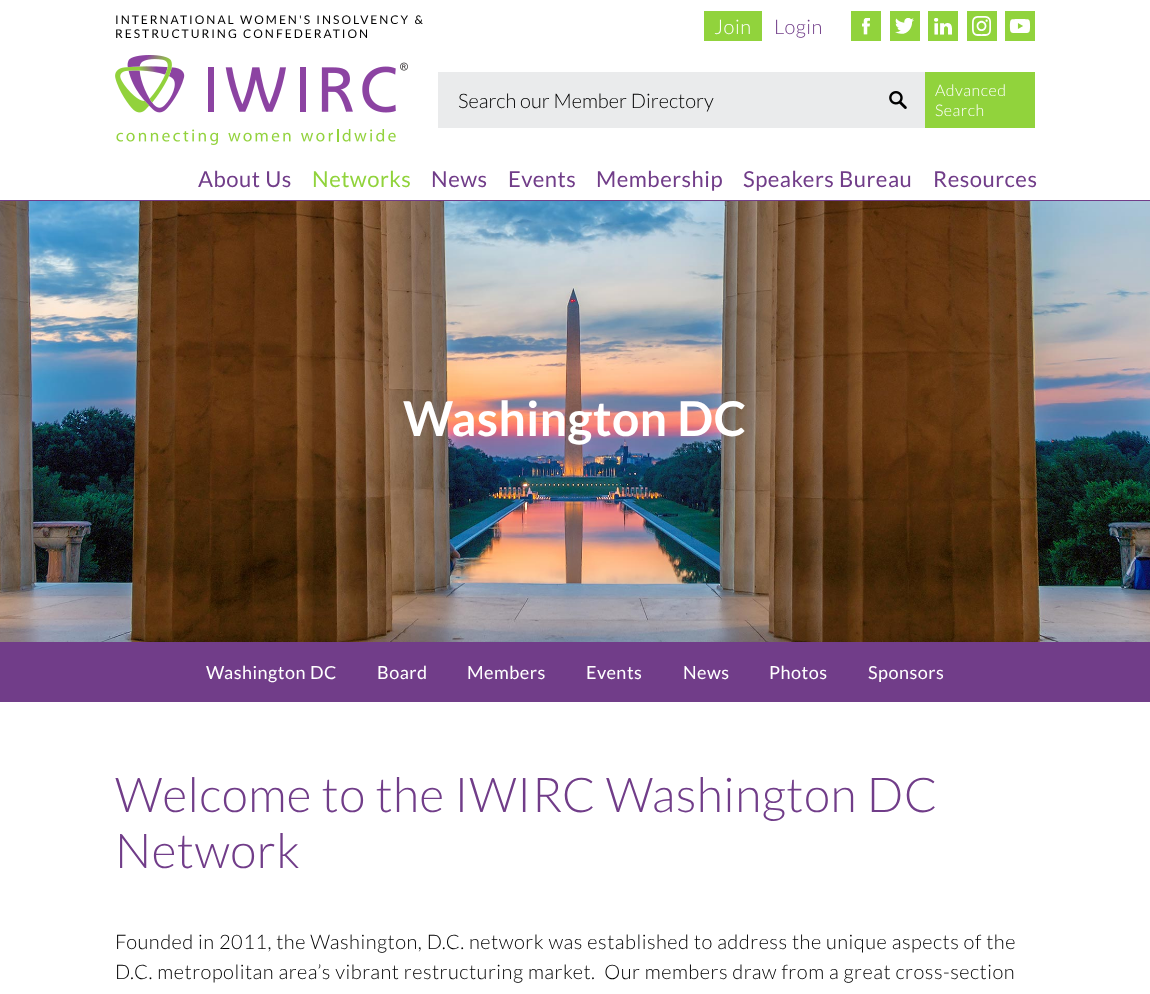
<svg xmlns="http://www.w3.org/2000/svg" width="1150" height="994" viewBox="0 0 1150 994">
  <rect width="100%" height="100%" fill="rgb(255,255,255)"/>
  <g font-family="Lato" font-size="12" letter-spacing="2" fill="rgb(0,0,0)">
    <text>
      <tspan x="115" y="24">INTERNATIONAL WOMEN'S INSOLVENCY &amp;</tspan>
      <tspan x="115" y="38">RESTRUCTURING CONFEDERATION</tspan>
    </text>
  </g>
  <image x="115" y="55" width="293" height="90" href="pic1.png"/>
  <rect x="925" y="72" width="110" height="56" fill="rgb(145,211,60)"/>
  <rect x="438" y="72" width="487" height="56" fill="rgb(234,235,236)"/>
  <image x="889" y="91" width="18" height="18" href="pic2.png"/>
  <text x="458" y="108" font-family="Lato" font-size="20" font-weight="300" fill="rgb(0,0,0)">Search our Member Directory</text>
  <g font-family="Lato" font-size="16" font-weight="300" letter-spacing="0.5" fill="rgb(255,255,255)">
    <text>
      <tspan x="935" y="96">Advanced</tspan>
      <tspan x="935" y="116">Search</tspan>
    </text>
  </g>
  <rect x="0" y="200" width="1150" height="1" fill="rgb(113,61,137)"/>
  <rect x="704" y="11" width="58" height="30" fill="rgb(145,211,60)"/>
  <text x="714" y="34" font-family="Lato" font-size="20" font-weight="300" letter-spacing="0.5" fill="rgb(255,255,255)">Join</text>
  <text x="774" y="34" font-family="Lato" font-size="20" font-weight="300" letter-spacing="0.5" fill="rgb(113,61,137)">Login</text>
  <rect x="851" y="11" width="30" height="30" fill="rgb(145,211,60)"/>
  <image x="862" y="18" width="8" height="17" href="pic3.png"/>
  <rect x="890" y="11" width="30" height="30" fill="rgb(145,211,60)"/>
  <image x="895" y="18" width="19" height="16" href="pic4.png"/>
  <rect x="928" y="11" width="30" height="30" fill="rgb(145,211,60)"/>
  <image x="934" y="18" width="18" height="17" href="pic5.png"/>
  <rect x="967" y="11" width="30" height="30" fill="rgb(145,211,60)"/>
  <image x="972" y="16" width="19" height="20" href="pic6.png"/>
  <rect x="1005" y="11" width="30" height="30" fill="rgb(145,211,60)"/>
  <image x="1009" y="19" width="22" height="14" href="pic7.png"/>
  <text x="198" y="187" font-family="Lato" font-size="22" letter-spacing="0.5" fill="rgb(113,61,137)">About Us</text>
  <text x="312" y="187" font-family="Lato" font-size="22" letter-spacing="0.5" fill="rgb(145,211,60)">Networks</text>
  <g font-family="Lato" font-size="22" letter-spacing="0.5" fill="rgb(113,61,137)">
    <text x="431" y="187">News</text>
    <text x="508" y="187">Events</text>
    <text x="596" y="187">Membership</text>
    <text x="743" y="187">Speakers Bureau</text>
    <text x="933" y="187">Resources</text>
  </g>
  <image x="0" y="201" width="1150" height="441" href="pic8.png"/>
  <text x="403" y="436" font-family="Lato" font-size="48" font-weight="bold" letter-spacing="0.5" fill="rgb(255,255,255)">Washington DC</text>
  <rect x="0" y="642" width="1150" height="60" fill="rgb(113,61,137)"/>
  <g font-family="Lato" font-size="18" letter-spacing="0.5" fill="rgb(255,255,255)">
    <text x="206" y="679">Washington DC</text>
    <text x="377" y="679">Board</text>
    <text x="467" y="679">Members</text>
    <text x="586" y="679">Events</text>
    <text x="683" y="679">News</text>
    <text x="769" y="679">Photos</text>
    <text x="868" y="679">Sponsors</text>
  </g>
  <g font-family="Lato" font-size="48" font-weight="300" letter-spacing="0.5" fill="rgb(113,61,137)">
    <text>
      <tspan x="115" y="812">Welcome to the IWIRC Washington DC</tspan>
      <tspan x="115" y="868">Network</tspan>
    </text>
  </g>
  <g font-family="Lato" font-size="20" font-weight="300" letter-spacing="0.5" fill="rgb(0,0,0)">
    <text xml:space="preserve"><tspan x="115" y="949">Founded in 2011, the Washington, D.C. network was established to address the unique aspects of the</tspan><tspan x="115" y="979">D.C. metropolitan area’s vibrant restructuring market.  Our members draw from a great cross-section</tspan></text>
  </g>
</svg>
